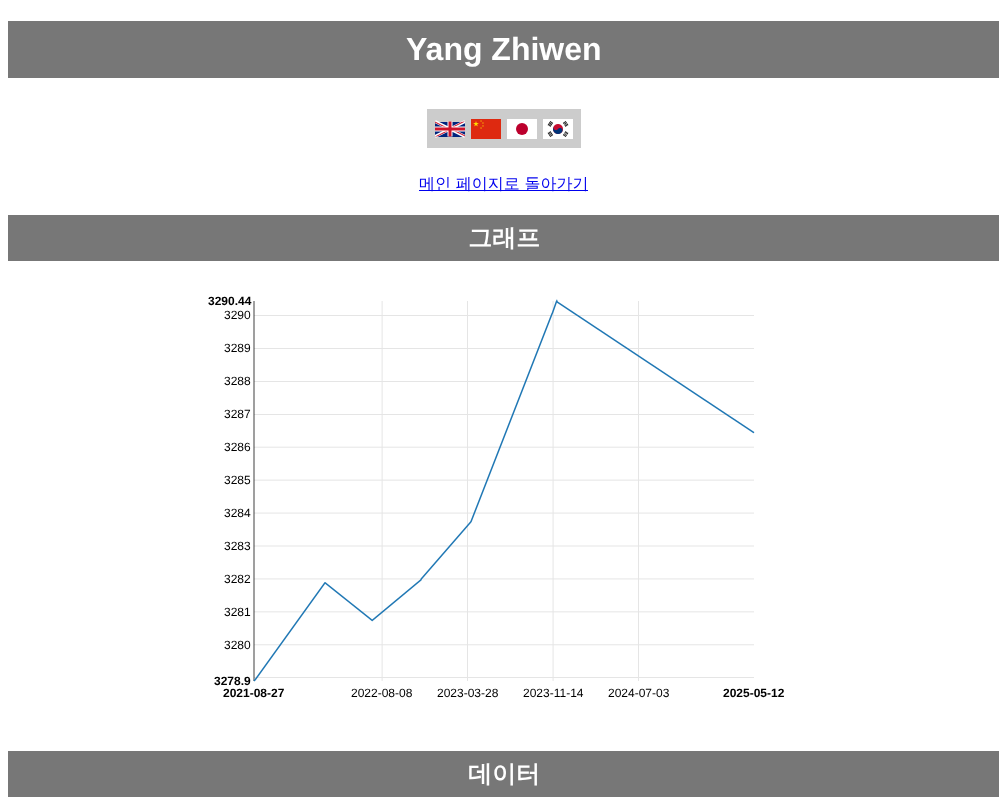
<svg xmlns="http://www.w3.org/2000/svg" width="1007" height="797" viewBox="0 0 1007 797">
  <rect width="100%" height="100%" fill="rgb(255,255,255)"/>
  <rect x="8" y="21" width="991" height="57" fill="rgb(119,119,119)"/>
  <text x="406" y="60" font-family="Liberation Sans" font-size="32" font-weight="bold" fill="rgb(255,255,255)">Yang Zhiwen</text>
  <rect x="427" y="109" width="154" height="39" fill="rgb(204,204,204)"/>
  <image x="435" y="120" width="30" height="18" href="pic1.png"/>
  <image x="471" y="119" width="30" height="20" href="pic2.png"/>
  <rect x="507" y="119" width="30" height="20" fill="rgb(255,255,255)"/>
  <image x="543" y="119" width="30" height="20" href="pic3.png"/>
  <circle cx="522" cy="129" r="6" fill="rgb(188,0,45)"/>
  <rect x="419" y="190" width="169" height="1" fill="rgb(0,0,238)"/>
  <text x="419" y="189" font-family="WenQuanYi Zen Hei" font-size="16" font-weight="500" fill="rgb(0,0,238)">메인 페이지로 돌아가기</text>
  <rect x="8" y="215" width="991" height="46" fill="rgb(119,119,119)"/>
  <text x="468" y="246" font-family="WenQuanYi Zen Hei" font-size="24" font-weight="bold" fill="rgb(255,255,255)">그래프</text>
  <image x="253" y="299" width="502" height="383" href="pic4.png"/>
  <text x="208" y="305" font-family="Liberation Sans" font-size="12" font-weight="bold" fill="rgb(0,0,0)">3290.44</text>
  <g font-family="Liberation Sans" font-size="12" fill="rgb(0,0,0)">
    <text x="224" y="319">3290</text>
    <text x="224" y="352">3289</text>
    <text x="224" y="385">3288</text>
    <text x="224" y="418">3287</text>
    <text x="224" y="451">3286</text>
    <text x="224" y="484">3285</text>
    <text x="224" y="517">3284</text>
    <text x="224" y="550">3283</text>
    <text x="224" y="583">3282</text>
    <text x="224" y="616">3281</text>
    <text x="224" y="649">3280</text>
  </g>
  <g font-family="Liberation Sans" font-size="12" font-weight="bold" fill="rgb(0,0,0)">
    <text x="214" y="685">3278.9</text>
    <text x="223" y="697">2021-08-27</text>
  </g>
  <g font-family="Liberation Sans" font-size="12" fill="rgb(0,0,0)">
    <text x="351" y="697">2022-08-08</text>
    <text x="437" y="697">2023-03-28</text>
    <text x="523" y="697">2023-11-14</text>
    <text x="608" y="697">2024-07-03</text>
  </g>
  <text x="723" y="697" font-family="Liberation Sans" font-size="12" font-weight="bold" fill="rgb(0,0,0)">2025-05-12</text>
  <rect x="8" y="751" width="991" height="46" fill="rgb(119,119,119)"/>
  <text x="468" y="782" font-family="WenQuanYi Zen Hei" font-size="24" font-weight="bold" fill="rgb(255,255,255)">데이터</text>
</svg>
